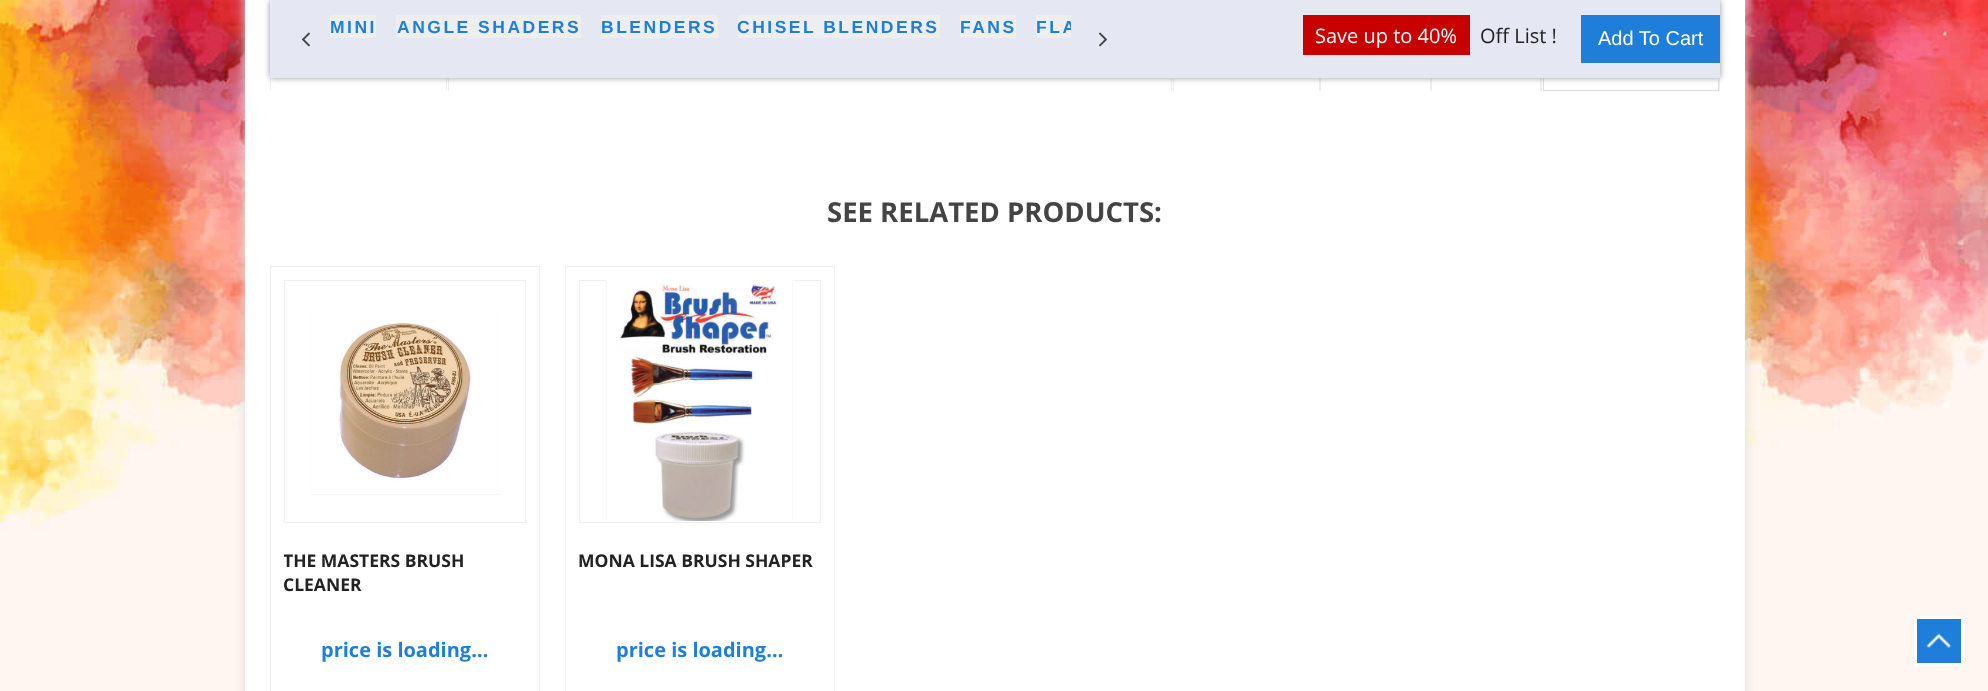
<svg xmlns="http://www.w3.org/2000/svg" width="1988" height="691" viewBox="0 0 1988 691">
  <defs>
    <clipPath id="clip1"><rect x="320" y="15" width="751" height="43"/></clipPath>
    <clipPath id="clip2"><rect x="284" y="548" width="242" height="47"/></clipPath>
  </defs>
  <rect width="100%" height="100%" fill="rgb(255,255,255)"/>
  <image x="0" y="0" width="1988" height="691" href="pic1.png"/>
  <rect x="245" y="-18" width="1500" height="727" fill="rgb(221,221,221)" filter="blur(6px)"/>
  <rect x="245" y="0" width="1500" height="691" fill="rgb(255,255,255)"/>
  <rect x="446" y="78" width="1" height="13" fill="rgb(238,238,238)"/>
  <rect x="270" y="78" width="1" height="13" fill="rgb(238,238,238)"/>
  <rect x="1171" y="78" width="1" height="13" fill="rgb(238,238,238)"/>
  <rect x="448" y="78" width="1" height="13" fill="rgb(238,238,238)"/>
  <rect x="1319" y="78" width="2" height="13" fill="rgb(238,238,238)"/>
  <rect x="1173" y="78" width="1" height="13" fill="rgb(238,238,238)"/>
  <rect x="1430" y="78" width="2" height="13" fill="rgb(238,238,238)"/>
  <rect x="1540" y="78" width="2" height="13" fill="rgb(238,238,238)"/>
  <rect x="1719" y="78" width="1" height="13" fill="rgb(238,238,238)"/>
  <rect x="1543.5" y="46.5" width="175" height="44" fill="none" stroke="rgb(221,221,221)"/>
  <rect x="270" y="0" width="1450" height="78" fill="rgb(153,153,153)" filter="blur(3px)"/>
  <rect x="270" y="0" width="1450" height="78" fill="rgb(229,232,243)"/>
  <rect x="330" y="15" width="46" height="23" fill="rgb(238,238,238)"/>
  <text x="330" y="33" font-family="Liberation Sans" font-size="17.5" font-weight="bold" letter-spacing="2.5" fill="rgb(30,126,218)">MINI</text>
  <rect x="396" y="15" width="185" height="23" fill="rgb(238,238,238)"/>
  <text x="397" y="33" font-family="Liberation Sans" font-size="17.5" font-weight="bold" letter-spacing="2.5" fill="rgb(30,126,218)">ANGLE SHADERS</text>
  <rect x="601" y="15" width="117" height="23" fill="rgb(238,238,238)"/>
  <text x="601" y="33" font-family="Liberation Sans" font-size="17.5" font-weight="bold" letter-spacing="2.5" fill="rgb(30,126,218)">BLENDERS</text>
  <rect x="738" y="15" width="202" height="23" fill="rgb(238,238,238)"/>
  <text x="737" y="33" font-family="Liberation Sans" font-size="17.5" font-weight="bold" letter-spacing="2.5" fill="rgb(30,126,218)">CHISEL BLENDERS</text>
  <rect x="960" y="15" width="56" height="23" fill="rgb(238,238,238)"/>
  <text x="960" y="33" font-family="Liberation Sans" font-size="17.5" font-weight="bold" letter-spacing="2.5" fill="rgb(30,126,218)">FANS</text>
  <rect x="1036" y="15" width="35" height="23" fill="rgb(238,238,238)"/>
  <g clip-path="url(#clip1)">
    <text x="1036" y="33" font-family="Liberation Sans" font-size="17.5" font-weight="bold" letter-spacing="2.5" fill="rgb(30,126,218)">FLA</text>
  </g>
  <image x="301" y="32" width="9" height="15" href="pic2.png"/>
  <image x="1099" y="32" width="8" height="15" href="pic3.png"/>
  <rect x="1303" y="15" width="167" height="40" fill="rgb(201,0,0)"/>
  <text x="1315" y="43" font-family="Open Sans" font-size="20" fill="rgb(255,255,255)">Save up to 40%</text>
  <text x="1480" y="43" font-family="Open Sans" font-size="20" fill="rgb(34,34,34)">Off List !</text>
  <rect x="1581" y="15" width="139" height="48" fill="rgb(30,126,218)"/>
  <text x="1598" y="45" font-family="Liberation Sans" font-size="20" fill="rgb(255,255,255)">Add To Cart</text>
  <text x="827" y="222" font-family="Open Sans" font-size="27.5" font-weight="bold" fill="rgb(68,68,68)">SEE RELATED PRODUCTS:</text>
  <rect x="270.5" y="266.5" width="269" height="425" fill="none" stroke="rgb(238,238,238)"/>
  <rect x="284.5" y="280.5" width="241" height="242" fill="none" stroke="rgb(238,238,238)"/>
  <rect x="311" y="308" width="188" height="187" fill="rgb(238,238,238)"/>
  <image x="311" y="308" width="188" height="187" href="pic4.png"/>
  <g clip-path="url(#clip2)">
    <text x="283" y="567" font-family="Open Sans" font-size="17.5" font-weight="bold" fill="rgb(34,34,34)">THE MASTERS BRUSH</text>
  </g>
  <text x="283" y="591" font-family="Open Sans" font-size="17.5" font-weight="bold" fill="rgb(34,34,34)">CLEANER</text>
  <text x="321" y="657" font-family="Open Sans" font-size="20" font-weight="bold" fill="rgb(30,126,218)">price is loading…</text>
  <rect x="565.5" y="266.5" width="269" height="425" fill="none" stroke="rgb(238,238,238)"/>
  <rect x="579.5" y="280.5" width="241" height="242" fill="none" stroke="rgb(238,238,238)"/>
  <rect x="606" y="281" width="187" height="240" fill="rgb(238,238,238)"/>
  <image x="606" y="280" width="187" height="241" href="pic5.png"/>
  <text x="578" y="567" font-family="Open Sans" font-size="17.5" font-weight="bold" fill="rgb(34,34,34)">MONA LISA BRUSH SHAPER</text>
  <text x="616" y="657" font-family="Open Sans" font-size="20" font-weight="bold" fill="rgb(30,126,218)">price is loading…</text>
  <rect x="1917" y="619" width="44" height="44" fill="rgb(30,126,218)"/>
  <image x="1926" y="633" width="26" height="15" href="pic6.png"/>
  <rect x="1915.5" y="617.5" width="47" height="47" fill="none" stroke="rgb(255,255,255)" stroke-width="3"/>
</svg>
